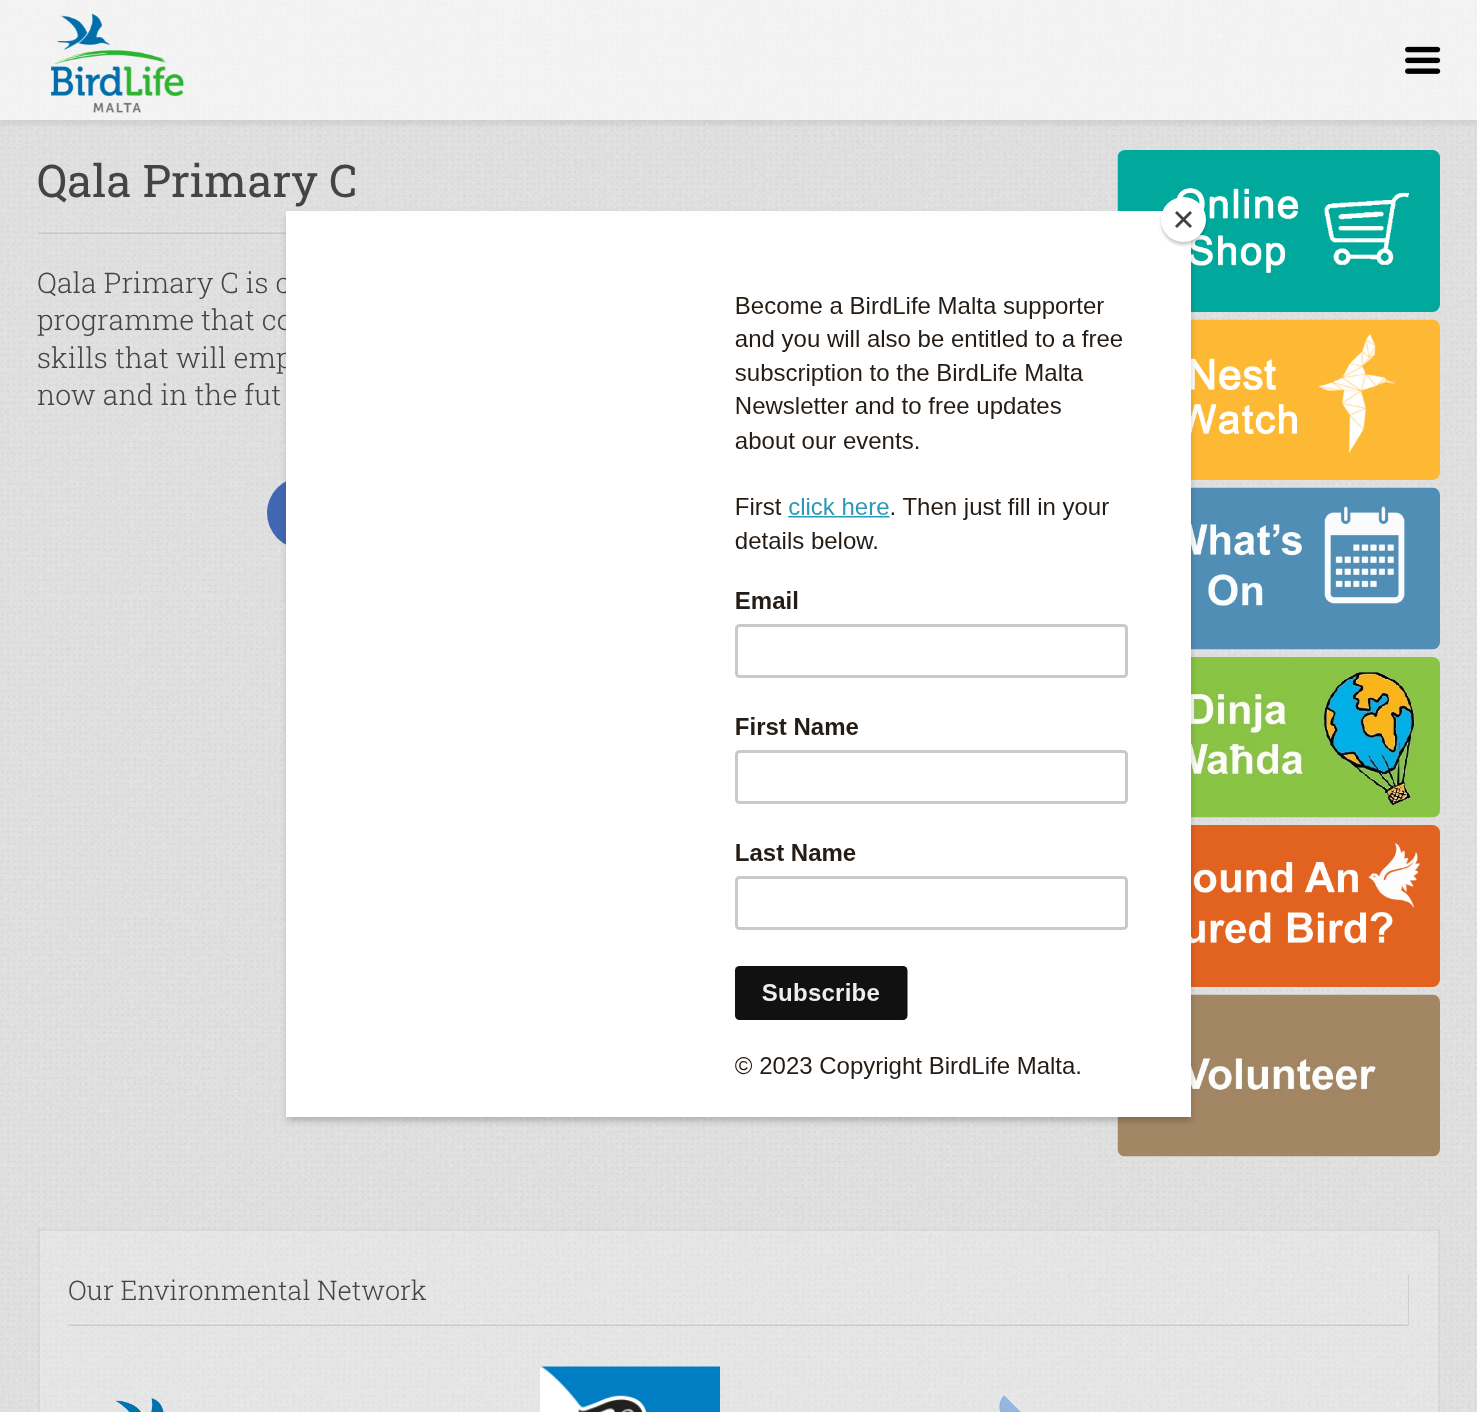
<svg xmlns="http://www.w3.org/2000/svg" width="1477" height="1412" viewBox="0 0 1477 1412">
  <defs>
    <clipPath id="clip1"><rect x="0" y="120" width="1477" height="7"/></clipPath>
  </defs>
  <rect width="100%" height="100%" fill="rgb(255,255,255)"/>
  <image x="0" y="120" width="1477" height="1292" href="pic1.png"/>
  <g clip-path="url(#clip1)">
    <rect x="0" y="0" width="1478" height="120" fill="rgba(0,0,0,0.15)" filter="blur(6px)"/>
  </g>
  <image x="0" y="0" width="1477" height="120" href="pic2.png"/>
  <image x="51" y="13" width="134" height="100" href="pic3.png"/>
  <image x="1405" y="46" width="36" height="28" href="pic4.png"/>
  <rect x="38" y="232" width="248" height="2" fill="rgba(0,0,0,0.1)"/>
  <rect x="38" y="231" width="248" height="2" fill="rgba(255,255,255,0.2)"/>
  <text x="37" y="197" font-family="Roboto Slab" font-size="45" fill="rgb(68,68,68)">Qala Primary C</text>
  <g font-family="Roboto Slab" font-size="28.5" font-weight="300" fill="rgb(68,68,68)">
    <text>
      <tspan x="37" y="293">Qala Primary C is c</tspan>
      <tspan x="37" y="330">programme that co</tspan>
      <tspan x="37" y="368">skills that will emp</tspan>
      <tspan x="37" y="405">now and in the fut</tspan>
    </text>
  </g>
  <circle cx="303" cy="513" r="36" fill="rgb(66,103,178)"/>
  <image x="1117" y="150" width="323" height="162" href="pic5.png"/>
  <image x="1191" y="319" width="249" height="161" href="pic6.png"/>
  <image x="1191" y="487" width="249" height="163" href="pic7.png"/>
  <image x="1191" y="657" width="249" height="161" href="pic8.png"/>
  <image x="1191" y="825" width="249" height="162" href="pic9.png"/>
  <image x="1117" y="994" width="323" height="163" href="pic10.png"/>
  <path d="M46 1229H1432C1436.5 1229 1440 1232.5 1440 1237V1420H38V1237C38 1232.5 41.5 1229 46 1229Z" fill="rgba(255,255,255,0.2)"/>
  <rect x="39" y="1230" width="1400" height="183" fill="none" stroke="rgba(0,0,0,0.05)" stroke-width="2"/>
  <path d="M69 1324V1326H1409V1274H1408V1324Z" fill="rgba(0,0,0,0.1)"/>
  <rect x="69" y="1323" width="1340" height="2" fill="rgba(255,255,255,0.2)"/>
  <text x="68" y="1300" font-family="Roboto Slab" font-size="27" font-weight="300" fill="rgb(68,68,68)">Our Environmental Network</text>
  <image x="115" y="1398" width="49" height="14" href="pic11.png"/>
  <image x="540" y="1366" width="180" height="46" href="pic12.png"/>
  <image x="999" y="1395" width="22" height="17" href="pic13.png"/>
  <rect x="287" y="215" width="904" height="906" fill="rgba(0,0,0,0.2)" filter="blur(3px)"/>
  <image x="286" y="211" width="905" height="906" href="pic14.png"/>
  <rect x="1161" y="200" width="45" height="45" rx="22.5" fill="rgba(0,0,0,0.2)" filter="blur(1.5px)"/>
  <circle cx="1183.5" cy="219.5" r="22.5" fill="rgb(255,255,255)"/>
  <path d="M1190 211L1192 213L1177 228L1175 226Z" fill="rgb(65,65,65)"/>
  <path d="M1175 213L1177 211L1192 226L1190 228Z" fill="rgb(65,65,65)"/>
</svg>
